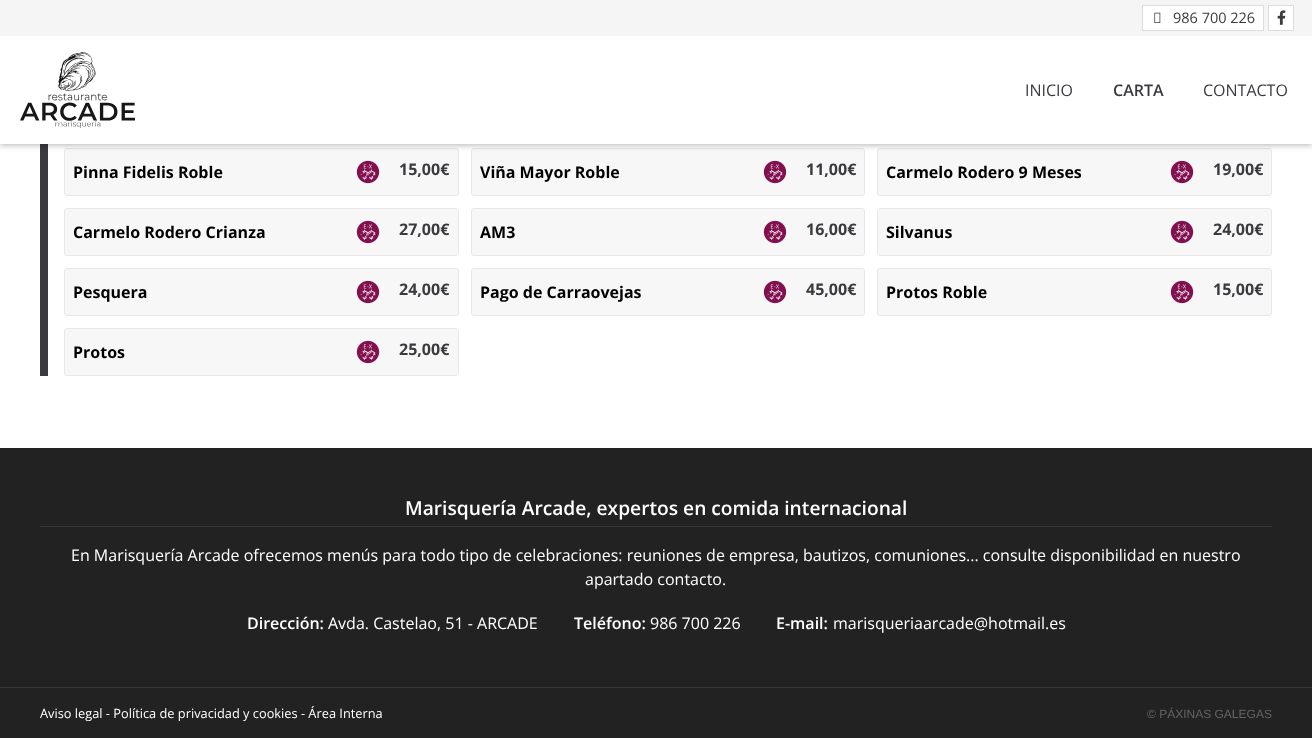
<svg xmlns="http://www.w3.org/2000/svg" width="1312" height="738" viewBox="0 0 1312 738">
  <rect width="100%" height="100%" fill="rgb(255,255,255)"/>
  <rect x="40" y="144" width="8" height="232" fill="rgb(59,58,63)"/>
  <rect x="64.5" y="148.5" width="394" height="47" rx="2.5" fill="rgb(247,247,247)" stroke="rgb(232,232,232)"/>
  <rect x="471.5" y="148.5" width="393" height="47" rx="2.5" fill="rgb(247,247,247)" stroke="rgb(232,232,232)"/>
  <rect x="877.5" y="148.5" width="394" height="47" rx="2.5" fill="rgb(247,247,247)" stroke="rgb(232,232,232)"/>
  <rect x="0" y="1" width="1312" height="144" fill="rgba(0,0,0,0.3)" filter="blur(3px)"/>
  <rect x="0" y="0" width="1312" height="36" fill="rgb(245,245,245)"/>
  <rect x="1142.5" y="5.5" width="121" height="25" fill="rgb(255,255,255)" stroke="rgb(221,221,221)"/>
  <image x="1154" y="12" width="7" height="11" href="pic1.png"/>
  <text x="1173" y="23" font-family="Open Sans" font-size="14.5" fill="rgb(59,58,63)">986 700 226</text>
  <rect x="1268.5" y="5.5" width="25" height="25" fill="rgb(255,255,255)" stroke="rgb(221,221,221)"/>
  <image x="1277" y="10" width="9" height="15" href="pic2.png"/>
  <rect x="0" y="36" width="1312" height="108" fill="rgb(255,255,255)"/>
  <image x="20" y="52" width="115" height="76" href="pic3.png"/>
  <text x="1025" y="96" font-family="Open Sans" font-size="16" fill="rgb(59,58,63)">INICIO</text>
  <text x="1113" y="96" font-family="Open Sans" font-size="16" font-weight="600" fill="rgb(59,58,63)">CARTA</text>
  <text x="1203" y="96" font-family="Open Sans" font-size="16" fill="rgb(59,58,63)">CONTACTO</text>
  <text x="73" y="178" font-family="Open Sans" font-size="16" font-weight="bold" fill="rgb(0,0,0)">Pinna Fidelis Roble</text>
  <image x="356" y="160" width="24" height="24" href="pic4.png"/>
  <text x="399" y="175" font-family="Open Sans" font-size="16" font-weight="bold" fill="rgb(59,58,63)">15,00€</text>
  <text x="480" y="178" font-family="Open Sans" font-size="16" font-weight="bold" fill="rgb(0,0,0)">Viña Mayor Roble</text>
  <image x="763" y="160" width="24" height="24" href="pic4.png"/>
  <text x="806" y="175" font-family="Open Sans" font-size="16" font-weight="bold" fill="rgb(59,58,63)">11,00€</text>
  <text x="886" y="178" font-family="Open Sans" font-size="16" font-weight="bold" fill="rgb(0,0,0)">Carmelo Rodero 9 Meses</text>
  <image x="1170" y="160" width="24" height="24" href="pic4.png"/>
  <text x="1213" y="175" font-family="Open Sans" font-size="16" font-weight="bold" fill="rgb(59,58,63)">19,00€</text>
  <rect x="64.5" y="208.5" width="394" height="47" rx="2.5" fill="rgb(247,247,247)" stroke="rgb(232,232,232)"/>
  <text x="73" y="238" font-family="Open Sans" font-size="16" font-weight="bold" fill="rgb(0,0,0)">Carmelo Rodero Crianza</text>
  <image x="356" y="220" width="24" height="24" href="pic4.png"/>
  <text x="399" y="235" font-family="Open Sans" font-size="16" font-weight="bold" fill="rgb(59,58,63)">27,00€</text>
  <rect x="471.5" y="208.5" width="393" height="47" rx="2.5" fill="rgb(247,247,247)" stroke="rgb(232,232,232)"/>
  <text x="480" y="238" font-family="Open Sans" font-size="16" font-weight="bold" fill="rgb(0,0,0)">AM3</text>
  <image x="763" y="220" width="24" height="24" href="pic4.png"/>
  <text x="806" y="235" font-family="Open Sans" font-size="16" font-weight="bold" fill="rgb(59,58,63)">16,00€</text>
  <rect x="877.5" y="208.5" width="394" height="47" rx="2.5" fill="rgb(247,247,247)" stroke="rgb(232,232,232)"/>
  <text x="886" y="238" font-family="Open Sans" font-size="16" font-weight="bold" fill="rgb(0,0,0)">Silvanus</text>
  <image x="1170" y="220" width="24" height="24" href="pic4.png"/>
  <text x="1213" y="235" font-family="Open Sans" font-size="16" font-weight="bold" fill="rgb(59,58,63)">24,00€</text>
  <rect x="64.5" y="268.5" width="394" height="47" rx="2.5" fill="rgb(247,247,247)" stroke="rgb(232,232,232)"/>
  <text x="73" y="298" font-family="Open Sans" font-size="16" font-weight="bold" fill="rgb(0,0,0)">Pesquera</text>
  <image x="356" y="280" width="24" height="24" href="pic4.png"/>
  <text x="399" y="295" font-family="Open Sans" font-size="16" font-weight="bold" fill="rgb(59,58,63)">24,00€</text>
  <rect x="471.5" y="268.5" width="393" height="47" rx="2.5" fill="rgb(247,247,247)" stroke="rgb(232,232,232)"/>
  <text x="480" y="298" font-family="Open Sans" font-size="16" font-weight="bold" fill="rgb(0,0,0)">Pago de Carraovejas</text>
  <image x="763" y="280" width="24" height="24" href="pic4.png"/>
  <text x="806" y="295" font-family="Open Sans" font-size="16" font-weight="bold" fill="rgb(59,58,63)">45,00€</text>
  <rect x="877.5" y="268.5" width="394" height="47" rx="2.5" fill="rgb(247,247,247)" stroke="rgb(232,232,232)"/>
  <text x="886" y="298" font-family="Open Sans" font-size="16" font-weight="bold" fill="rgb(0,0,0)">Protos Roble</text>
  <image x="1170" y="280" width="24" height="24" href="pic4.png"/>
  <text x="1213" y="295" font-family="Open Sans" font-size="16" font-weight="bold" fill="rgb(59,58,63)">15,00€</text>
  <rect x="64.5" y="328.5" width="394" height="47" rx="2.5" fill="rgb(247,247,247)" stroke="rgb(232,232,232)"/>
  <text x="73" y="358" font-family="Open Sans" font-size="16" font-weight="bold" fill="rgb(0,0,0)">Protos</text>
  <image x="356" y="340" width="24" height="24" href="pic4.png"/>
  <text x="399" y="355" font-family="Open Sans" font-size="16" font-weight="bold" fill="rgb(59,58,63)">25,00€</text>
  <rect x="0" y="448" width="1312" height="290" fill="rgb(34,34,34)"/>
  <rect x="40" y="526" width="1232" height="1" fill="rgb(56,56,56)"/>
  <text x="405" y="515" font-family="Open Sans" font-size="19.2" font-weight="600" fill="rgb(255,255,255)">Marisquería Arcade, expertos en comida internacional</text>
  <g font-family="Open Sans" font-size="16" fill="rgb(255,255,255)">
    <text x="71" y="561">En Marisquería Arcade ofrecemos menús para todo tipo de celebraciones: reuniones de empresa, bautizos, comuniones... consulte disponibilidad en nuestro</text>
    <text x="585" y="585">apartado contacto.</text>
  </g>
  <text x="247" y="629" font-family="Open Sans" font-size="16" font-weight="600" fill="rgb(255,255,255)">Dirección:</text>
  <text x="328" y="629" font-family="Open Sans" font-size="16" fill="rgb(255,255,255)">Avda. Castelao, 51 - ARCADE</text>
  <text x="574" y="629" font-family="Open Sans" font-size="16" font-weight="600" fill="rgb(255,255,255)">Teléfono:</text>
  <text x="650" y="629" font-family="Open Sans" font-size="16" fill="rgb(255,255,255)">986 700 226</text>
  <text x="776" y="629" font-family="Open Sans" font-size="16" font-weight="600" fill="rgb(255,255,255)">E-mail:</text>
  <text x="833" y="629" font-family="Open Sans" font-size="16" fill="rgb(255,255,255)">marisqueriaarcade@hotmail.es</text>
  <rect x="0" y="687" width="1312" height="1" fill="rgb(56,56,56)"/>
  <text x="40" y="718" font-family="Open Sans" font-size="12.8" fill="rgb(255,255,255)">Aviso legal - Política de privacidad y cookies - Área Interna</text>
  <text x="1147" y="718" font-family="Liberation Sans" font-size="12" fill="rgb(100,100,100)">© PÁXINAS GALEGAS</text>
</svg>
